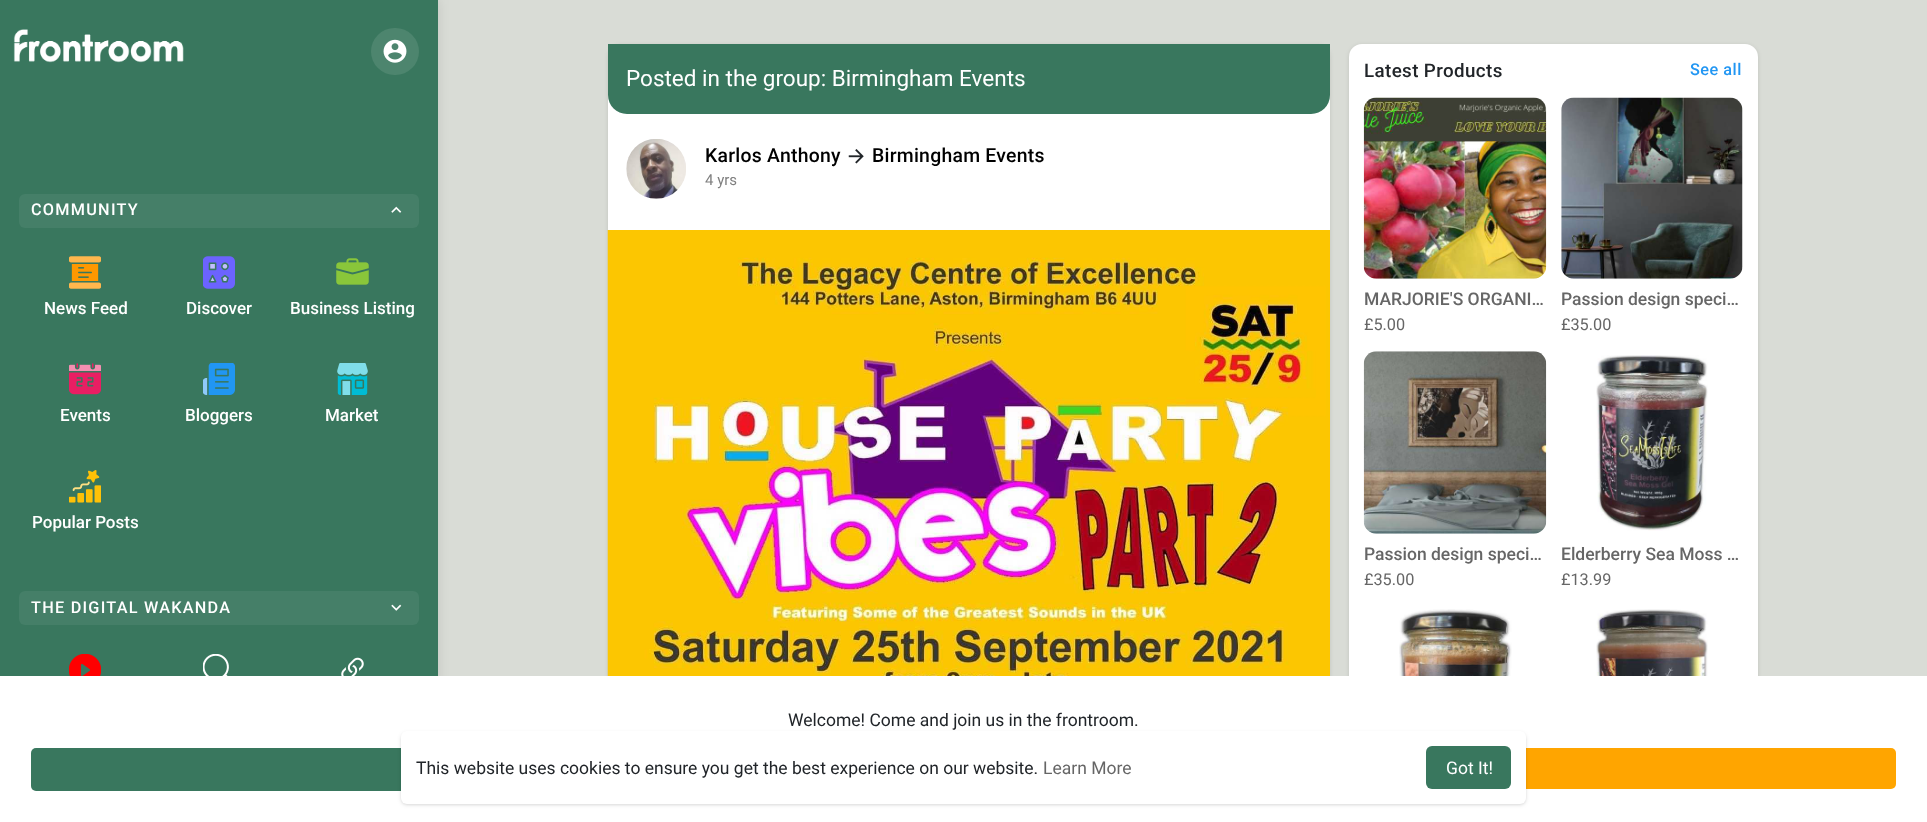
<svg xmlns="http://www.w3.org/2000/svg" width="1927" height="822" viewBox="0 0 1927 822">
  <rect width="100%" height="100%" fill="rgb(217,220,214)"/>
  <rect x="0" y="0" width="438" height="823" fill="rgba(0,0,0,0.1)" filter="blur(6px)"/>
  <rect x="0" y="0" width="438" height="676" fill="rgb(57,119,94)"/>
  <image x="13" y="29" width="171" height="34" href="pic1.png"/>
  <rect x="371" y="28" width="48" height="47" rx="23.5" fill="rgb(77,133,110)"/>
  <image x="383" y="39" width="24" height="24" href="pic2.png"/>
  <rect x="19" y="194" width="400" height="34" rx="6" fill="rgb(69,127,104)"/>
  <text x="31" y="215" font-family="Roboto" font-size="16.25" font-weight="500" letter-spacing="1.25" fill="rgb(255,255,255)">COMMUNITY</text>
  <image x="391" y="206" width="11" height="7" href="pic3.png"/>
  <image x="69" y="256" width="32" height="33" href="pic4.png"/>
  <text x="44" y="314" font-family="Roboto" font-size="17" font-weight="500" fill="rgb(255,255,255)">News Feed</text>
  <image x="203" y="256" width="32" height="33" href="pic5.png"/>
  <text x="186" y="314" font-family="Roboto" font-size="17" font-weight="500" fill="rgb(255,255,255)">Discover</text>
  <image x="336" y="258" width="33" height="27" href="pic6.png"/>
  <text x="290" y="314" font-family="Roboto" font-size="17" font-weight="500" fill="rgb(255,255,255)">Business Listing</text>
  <image x="69" y="363" width="32" height="32" href="pic7.png"/>
  <text x="60" y="421" font-family="Roboto" font-size="17" font-weight="500" fill="rgb(255,255,255)">Events</text>
  <image x="203" y="363" width="32" height="32" href="pic8.png"/>
  <text x="185" y="421" font-family="Roboto" font-size="17" font-weight="500" fill="rgb(255,255,255)">Bloggers</text>
  <image x="337" y="363" width="31" height="32" href="pic9.png"/>
  <text x="325" y="421" font-family="Roboto" font-size="17" font-weight="500" fill="rgb(255,255,255)">Market</text>
  <image x="69" y="470" width="32" height="33" href="pic10.png"/>
  <text x="32" y="528" font-family="Roboto" font-size="17" font-weight="500" fill="rgb(255,255,255)">Popular Posts</text>
  <rect x="19" y="591" width="400" height="34" rx="6" fill="rgb(69,127,104)"/>
  <text x="31" y="613" font-family="Roboto" font-size="16.25" font-weight="500" letter-spacing="1.25" fill="rgb(255,255,255)">THE DIGITAL WAKANDA</text>
  <image x="391" y="604" width="11" height="7" href="pic11.png"/>
  <image x="69" y="654" width="32" height="22" href="pic12.png"/>
  <image x="203" y="654" width="26" height="22" href="pic13.png"/>
  <image x="341" y="657" width="23" height="19" href="pic14.png"/>
  <rect x="608" y="45" width="722" height="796" rx="13" fill="rgba(0,0,0,0.1)" filter="blur(2px)"/>
  <rect x="608" y="95" width="722" height="135" fill="rgb(255,255,255)"/>
  <path d="M608 44H1330V95C1330 105.5 1321.5 114 1311 114H627C616.5 114 608 105.5 608 95Z" fill="rgb(57,119,94)"/>
  <text x="626" y="86" font-family="Roboto" font-size="22.5" fill="rgb(255,255,255)">Posted in the group: Birmingham Events</text>
  <image x="626" y="139" width="60" height="60" href="pic15.png"/>
  <text x="705" y="162" font-family="Roboto" font-size="19.4" font-weight="500" letter-spacing="0.25" fill="rgb(0,0,0)">Karlos Anthony</text>
  <image x="848" y="149" width="16" height="15" href="pic16.png"/>
  <text x="872" y="162" font-family="Roboto" font-size="19.4" font-weight="500" letter-spacing="0.25" fill="rgb(0,0,0)">Birmingham Events</text>
  <text x="705" y="185" font-family="Roboto" font-size="15" fill="rgb(127,127,127)">4 yrs</text>
  <image x="607" y="230" width="723" height="446" href="pic17.png"/>
  <rect x="1349" y="45" width="409" height="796" rx="13" fill="rgba(0,0,0,0.1)" filter="blur(2px)"/>
  <rect x="1349" y="44" width="409" height="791" rx="13" fill="rgb(255,255,255)"/>
  <text x="1364" y="77" font-family="Roboto" font-size="18.75" font-weight="500" letter-spacing="0.4" fill="rgb(33,37,41)">Latest Products</text>
  <text x="1690" y="75" font-family="Roboto" font-size="16.25" font-weight="500" letter-spacing="0.5" fill="rgb(33,150,243)">See all</text>
  <image x="1363" y="97" width="184" height="182" href="pic18.png"/>
  <text x="1364" y="305" font-family="Roboto" font-size="17.5" font-weight="500" fill="rgb(102,102,102)">MARJORIE'S ORGANI…</text>
  <text x="1364" y="330" font-family="Roboto" font-size="16.25" fill="rgb(102,102,102)">£5.00</text>
  <image x="1561" y="97" width="182" height="182" href="pic19.png"/>
  <text x="1561" y="305" font-family="Roboto" font-size="17.5" font-weight="500" fill="rgb(102,102,102)">Passion design speci…</text>
  <text x="1561" y="330" font-family="Roboto" font-size="16.25" fill="rgb(102,102,102)">£35.00</text>
  <image x="1363" y="351" width="184" height="183" href="pic20.png"/>
  <text x="1364" y="560" font-family="Roboto" font-size="17.5" font-weight="500" fill="rgb(102,102,102)">Passion design speci…</text>
  <text x="1364" y="585" font-family="Roboto" font-size="16.25" fill="rgb(102,102,102)">£35.00</text>
  <image x="1596" y="355" width="112" height="176" href="pic21.png"/>
  <text x="1561" y="560" font-family="Roboto" font-size="17.5" font-weight="500" fill="rgb(102,102,102)">Elderberry Sea Moss …</text>
  <text x="1561" y="585" font-family="Roboto" font-size="16.25" fill="rgb(102,102,102)">£13.99</text>
  <image x="1399" y="609" width="113" height="67" href="pic22.png"/>
  <image x="1596" y="609" width="112" height="67" href="pic23.png"/>
  <rect x="0" y="676" width="1927" height="146" fill="rgb(255,255,255)"/>
  <text x="788" y="726" font-family="Roboto" font-size="17.5" fill="rgb(33,37,41)">Welcome! Come and join us in the frontroom.</text>
  <rect x="31" y="748" width="914" height="43" rx="5" fill="rgb(57,119,94)"/>
  <rect x="983" y="748" width="913" height="41" rx="5" fill="rgb(255,165,0)"/>
  <rect x="401" y="733" width="1125" height="72" rx="6" fill="rgba(0,0,0,0.06)" filter="blur(1px)"/>
  <rect x="401" y="733" width="1125" height="72" rx="6" fill="rgba(0,0,0,0.1)" filter="blur(2px)"/>
  <rect x="401" y="731" width="1125" height="73" rx="6" fill="rgb(255,255,255)"/>
  <text x="416" y="774" font-family="Roboto" font-size="17.5" fill="rgb(33,37,41)">This website uses cookies to ensure you get the best experience on our website.</text>
  <text x="1043" y="774" font-family="Roboto" font-size="17.5" fill="rgb(102,102,102)">Learn More</text>
  <rect x="1426" y="746" width="85" height="43" rx="6" fill="rgb(57,119,94)"/>
  <text x="1446" y="774" font-family="Roboto" font-size="17.5" fill="rgb(255,255,255)">Got It!</text>
</svg>
